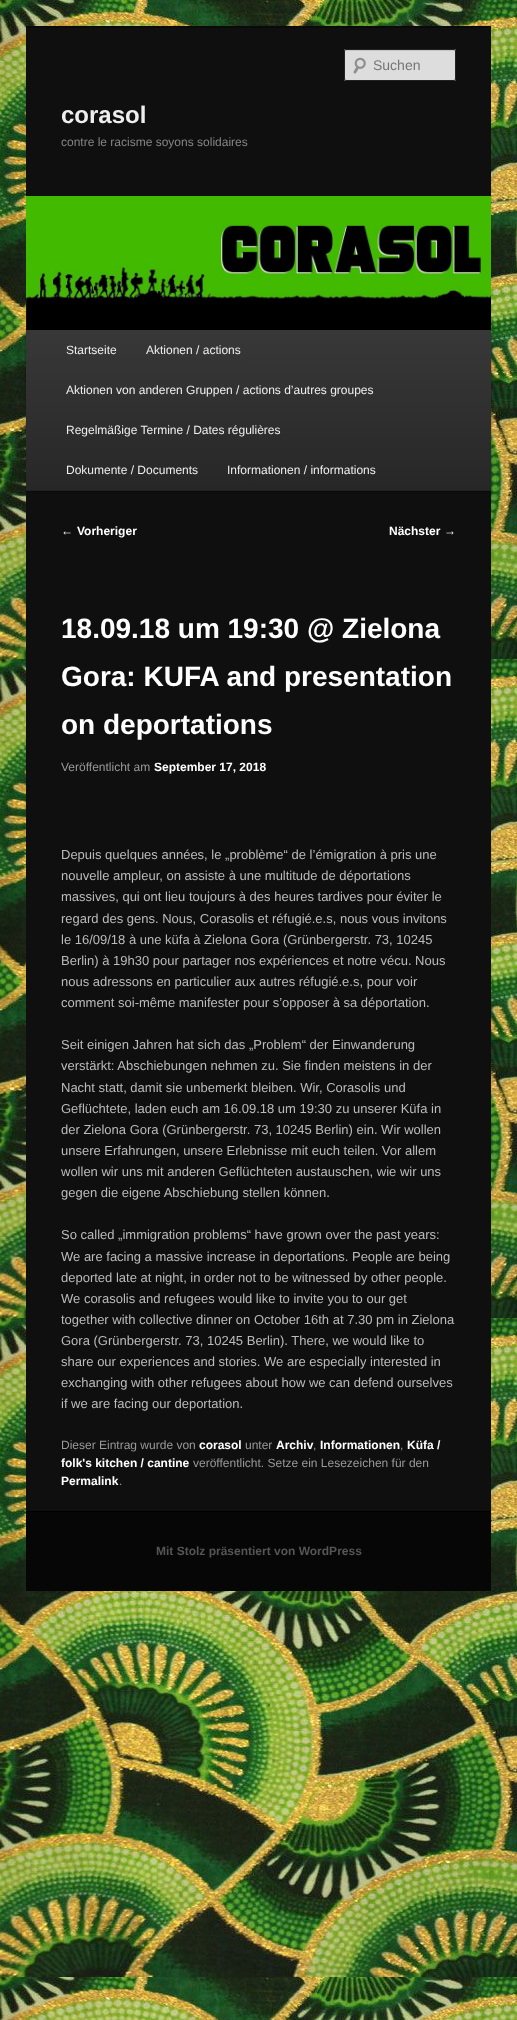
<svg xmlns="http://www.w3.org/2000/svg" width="517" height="2020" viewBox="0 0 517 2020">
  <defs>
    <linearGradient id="g1" gradientUnits="userSpaceOnUse" x1="259" y1="330" x2="259" y2="490"><stop offset="0" stop-color="rgb(56,56,56)"/><stop offset="1" stop-color="rgb(39,39,39)"/></linearGradient>
  </defs>
  <rect width="100%" height="100%" fill="rgb(255,255,255)"/>
  <image x="0" y="0" width="517" height="2020" href="pic1.png"/>
  <rect x="26" y="28" width="465" height="1483" fill="rgb(15,15,15)"/>
  <rect x="26" y="26" width="465" height="2" fill="rgb(10,10,10)"/>
  <rect x="344" y="49" width="112" height="32" rx="2" fill="rgb(221,221,221)"/>
  <image x="353" y="57" width="13" height="17" href="pic2.png"/>
  <path d="M346 51H455V52L454 50H364C360 50 345 45 345 52C345 51 345 51 346 51Z" fill="rgba(0,0,0,0.1)"/>
  <rect x="344.5" y="49.5" width="111" height="31" rx="1.5" fill="none" stroke="rgb(34,34,34)"/>
  <text x="373" y="70" font-family="Liberation Sans" font-size="14" fill="rgb(117,117,117)">Suchen</text>
  <text x="61" y="123" font-family="Liberation Sans" font-size="24" font-weight="bold" fill="rgb(238,238,238)">corasol</text>
  <text x="61" y="146" font-family="Liberation Sans" font-size="12" fill="rgb(133,133,133)">contre le racisme soyons solidaires</text>
  <rect x="26" y="331" width="465" height="161" fill="rgba(0,0,0,0.4)" filter="blur(1px)"/>
  <image x="26" y="196" width="465" height="134" href="pic3.png"/>
  <rect x="26" y="330" width="465" height="160" fill="url(#g1)"/>
  <rect x="26" y="490" width="465" height="1" fill="rgb(34,34,34)"/>
  <g font-family="Liberation Sans" font-size="12" fill="rgb(238,238,238)">
    <text x="66" y="354">Startseite</text>
    <text x="146" y="354">Aktionen / actions</text>
    <text x="66" y="394">Aktionen von anderen Gruppen / actions d’autres groupes</text>
    <text x="66" y="434">Regelmäßige Termine / Dates régulières</text>
    <text x="66" y="474">Dokumente / Documents</text>
    <text x="227" y="474">Informationen / informations</text>
  </g>
  <text x="61" y="535" font-family="Liberation Sans" font-size="12" fill="rgb(255,255,255)">←</text>
  <g font-family="Liberation Sans" font-size="12" font-weight="bold" fill="rgb(255,255,255)">
    <text x="77" y="535">Vorheriger</text>
    <text x="389" y="535">Nächster</text>
  </g>
  <text x="444" y="535" font-family="Liberation Sans" font-size="12" fill="rgb(255,255,255)">→</text>
  <g font-family="Liberation Sans" font-size="28" font-weight="bold" fill="rgb(255,255,255)">
    <text>
      <tspan x="61" y="638">18.09.18 um 19:30 @ Zielona</tspan>
      <tspan x="61" y="686">Gora: KUFA and presentation</tspan>
      <tspan x="61" y="734">on deportations</tspan>
    </text>
  </g>
  <text x="61" y="771" font-family="Liberation Sans" font-size="12" fill="rgb(153,153,153)">Veröffentlicht am</text>
  <text x="154" y="771" font-family="Liberation Sans" font-size="12" font-weight="bold" fill="rgb(255,255,255)">September 17, 2018</text>
  <g font-family="Liberation Sans" font-size="13" fill="rgb(187,187,187)">
    <text>
      <tspan x="61" y="859">Depuis quelques années, le „problème“ de l’émigration à pris une</tspan>
      <tspan x="61" y="880">nouvelle ampleur, on assiste à une multitude de déportations</tspan>
      <tspan x="61" y="901">massives, qui ont lieu toujours à des heures tardives pour éviter le</tspan>
      <tspan x="61" y="923">regard des gens. Nous, Corasolis et réfugié.e.s, nous vous invitons</tspan>
      <tspan x="61" y="944">le 16/09/18 à une küfa à Zielona Gora (Grünbergerstr. 73, 10245</tspan>
      <tspan x="61" y="965">Berlin) à 19h30 pour partager nos expériences et notre vécu. Nous</tspan>
      <tspan x="61" y="986">nous adressons en particulier aux autres réfugié.e.s, pour voir</tspan>
      <tspan x="61" y="1007">comment soi-même manifester pour s’opposer à sa déportation.</tspan>
    </text>
    <text>
      <tspan x="61" y="1049">Seit einigen Jahren hat sich das „Problem“ der Einwanderung</tspan>
      <tspan x="61" y="1070">verstärkt: Abschiebungen nehmen zu. Sie finden meistens in der</tspan>
      <tspan x="61" y="1092">Nacht statt, damit sie unbemerkt bleiben. Wir, Corasolis und</tspan>
      <tspan x="61" y="1113">Geflüchtete, laden euch am 16.09.18 um 19:30 zu unserer Küfa in</tspan>
      <tspan x="61" y="1134">der Zielona Gora (Grünbergerstr. 73, 10245 Berlin) ein. Wir wollen</tspan>
      <tspan x="61" y="1155">unsere Erfahrungen, unsere Erlebnisse mit euch teilen. Vor allem</tspan>
      <tspan x="61" y="1176">wollen wir uns mit anderen Geflüchteten austauschen, wie wir uns</tspan>
      <tspan x="61" y="1197">gegen die eigene Abschiebung stellen können.</tspan>
    </text>
    <text>
      <tspan x="61" y="1239">So called „immigration problems“ have grown over the past years:</tspan>
      <tspan x="61" y="1261">We are facing a massive increase in deportations. People are being</tspan>
      <tspan x="61" y="1282">deported late at night, in order not to be witnessed by other people.</tspan>
      <tspan x="61" y="1303">We corasolis and refugees would like to invite you to our get</tspan>
      <tspan x="61" y="1324">together with collective dinner on October 16th at 7.30 pm in Zielona</tspan>
      <tspan x="61" y="1345">Gora (Grünbergerstr. 73, 10245 Berlin). There, we would like to</tspan>
      <tspan x="61" y="1366">share our experiences and stories. We are especially interested in</tspan>
      <tspan x="61" y="1387">exchanging with other refugees about how we can defend ourselves</tspan>
      <tspan x="61" y="1408">if we are facing our deportation.</tspan>
    </text>
  </g>
  <text x="61" y="1449" font-family="Liberation Sans" font-size="12" fill="rgb(153,153,153)">Dieser Eintrag wurde von</text>
  <text x="199" y="1449" font-family="Liberation Sans" font-size="12" font-weight="bold" fill="rgb(255,255,255)">corasol</text>
  <text x="245" y="1449" font-family="Liberation Sans" font-size="12" fill="rgb(153,153,153)">unter</text>
  <text x="276" y="1449" font-family="Liberation Sans" font-size="12" font-weight="bold" fill="rgb(255,255,255)">Archiv</text>
  <text x="313" y="1449" font-family="Liberation Sans" font-size="12" fill="rgb(153,153,153)">,</text>
  <text x="320" y="1449" font-family="Liberation Sans" font-size="12" font-weight="bold" fill="rgb(255,255,255)">Informationen</text>
  <text x="400" y="1449" font-family="Liberation Sans" font-size="12" fill="rgb(153,153,153)">,</text>
  <g font-family="Liberation Sans" font-size="12" font-weight="bold" fill="rgb(255,255,255)">
    <text x="407" y="1449">Küfa /</text>
    <text x="61" y="1467">folk's kitchen / cantine</text>
  </g>
  <text x="193" y="1467" font-family="Liberation Sans" font-size="12" fill="rgb(153,153,153)">veröffentlicht. Setze ein Lesezeichen für den</text>
  <text x="61" y="1485" font-family="Liberation Sans" font-size="12" font-weight="bold" fill="rgb(255,255,255)">Permalink</text>
  <text x="119" y="1485" font-family="Liberation Sans" font-size="12" fill="rgb(153,153,153)">.</text>
  <rect x="26" y="1512" width="465" height="79" fill="rgb(6,6,6)"/>
  <rect x="26" y="1511" width="465" height="1" fill="rgb(0,0,0)"/>
  <text x="156" y="1555" font-family="Liberation Sans" font-size="12" font-weight="bold" fill="rgb(85,85,85)">Mit Stolz präsentiert von WordPress</text>
</svg>
